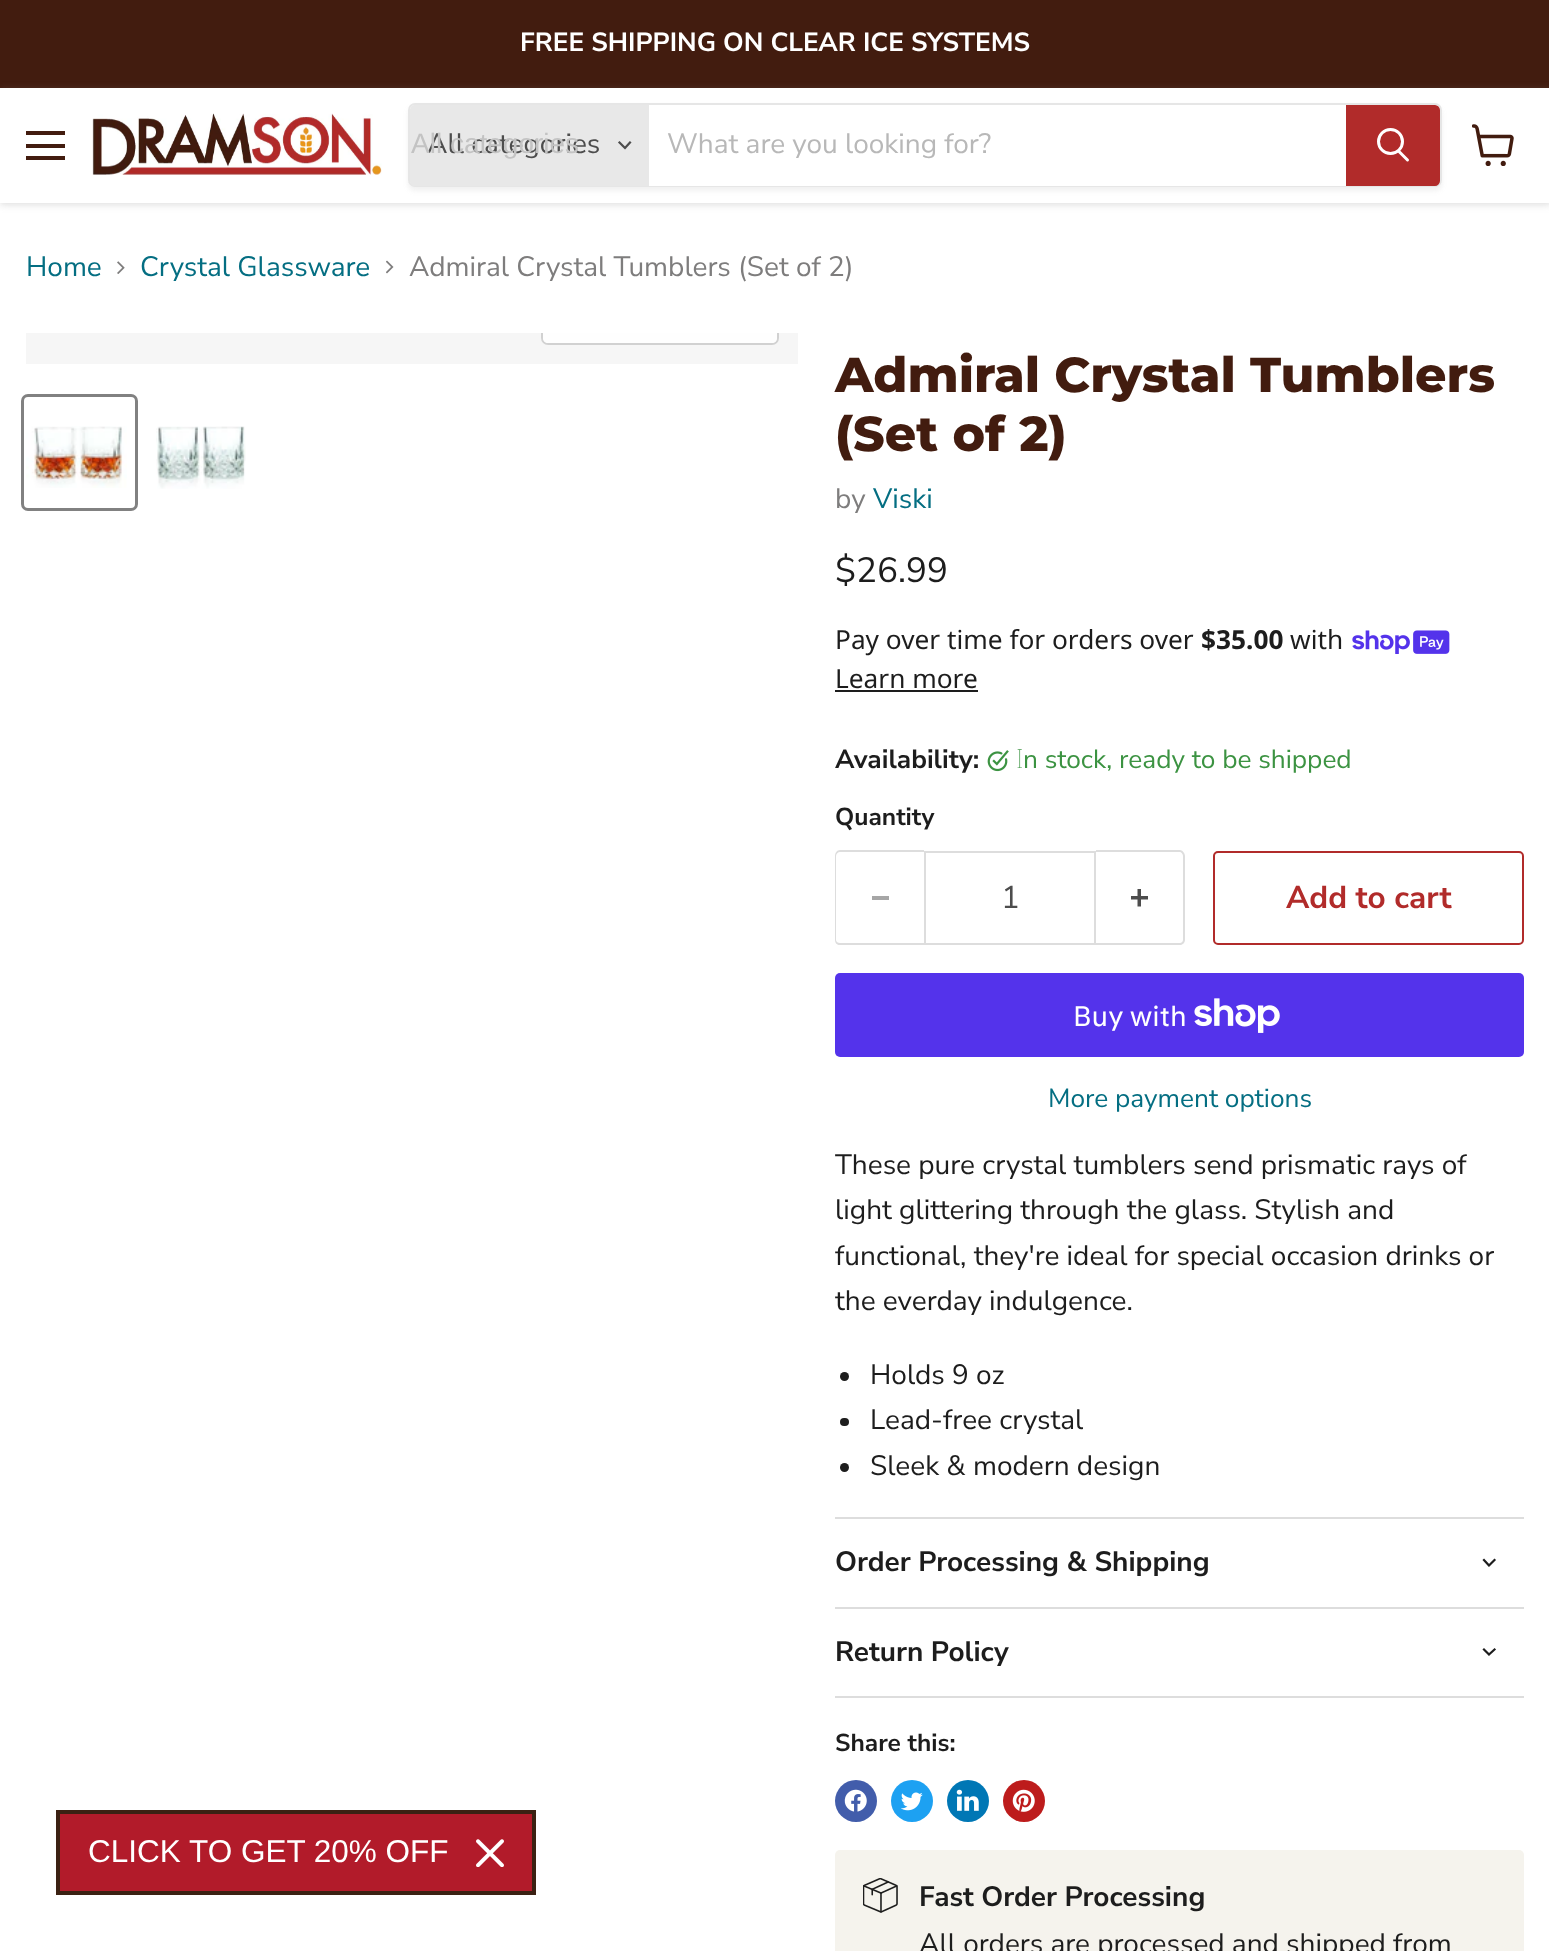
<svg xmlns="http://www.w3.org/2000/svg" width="1549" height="1951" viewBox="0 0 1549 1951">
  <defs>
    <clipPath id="clip1"><path d="M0 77H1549V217H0ZM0 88H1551V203H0Z" clip-rule="evenodd"/></clipPath>
    <clipPath id="clip2"><path d="M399 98H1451V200H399ZM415 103H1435C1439 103 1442 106 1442 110V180C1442 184 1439 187 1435 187H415C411 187 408 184 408 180V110C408 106 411 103 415 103Z" clip-rule="evenodd"/></clipPath>
    <clipPath id="clip3"><rect x="26" y="333" width="772" height="31"/></clipPath>
  </defs>
  <rect width="100%" height="100%" fill="rgb(255,255,255)"/>
  <rect x="0" y="0" width="1549" height="88" fill="rgb(66,28,15)"/>
  <text x="520" y="51" font-family="Nunito Sans" font-size="26.25" font-weight="bold" fill="rgb(255,255,255)">FREE SHIPPING ON CLEAR ICE SYSTEMS</text>
  <g clip-path="url(#clip1)">
    <rect x="0" y="89" width="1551" height="116" fill="rgba(128,128,128,0.25)" filter="blur(3.5px)"/>
  </g>
  <rect x="26" y="131" width="39" height="4" fill="rgb(66,28,15)"/>
  <rect x="26" y="144" width="39" height="4" fill="rgb(66,28,15)"/>
  <rect x="26" y="156" width="39" height="4" fill="rgb(66,28,15)"/>
  <image x="92" y="113" width="290" height="62" href="pic1.png"/>
  <g clip-path="url(#clip2)">
    <rect x="408" y="107" width="1034" height="84" rx="7" fill="rgba(128,128,128,0.11)" filter="blur(2.5px)"/>
  </g>
  <rect x="409" y="104" width="1032" height="82" rx="6" fill="none" stroke="rgba(128,128,128,0.2)" stroke-width="2"/>
  <path d="M415 105H649V186H415C412 186 410 184 410 181V110C410 107 412 105 415 105Z" fill="rgb(232,232,232)"/>
  <text x="427" y="153" font-family="Nunito Sans" font-size="28" fill="rgb(77,77,77)">All categories</text>
  <text x="411" y="153" font-family="Liberation Sans" font-size="28" fill="rgb(195,195,195)">All categories</text>
  <path d="M625 148L630 142.5M625 148L619.5 142.5" fill="none" stroke="rgb(77,77,77)" stroke-width="2.2" stroke-linecap="square"/>
  <rect x="649" y="185" width="697" height="1" fill="rgb(255,255,255)"/>
  <text x="667" y="153" font-family="Nunito Sans" font-size="28" fill="rgb(184,184,184)">What are you looking for?</text>
  <path d="M1347 106H1435C1437 106 1439 108 1439 110V181C1439 183 1437 185 1435 185H1347Z" fill="rgb(177,43,42)" stroke="rgb(177,43,42)" stroke-width="2"/>
  <path d="M1407.5 160L1399 151.5" fill="none" stroke="rgb(255,255,255)" stroke-width="3" stroke-linecap="round"/>
  <circle cx="1390.5" cy="141.5" r="12" fill="none" stroke="rgb(255,255,255)" stroke-width="3"/>
  <image x="1472" y="124" width="42" height="42" href="pic2.png"/>
  <text x="26" y="276" font-family="Nunito Sans" font-size="28" fill="rgb(4,110,130)">Home</text>
  <image x="117" y="261" width="8" height="13" href="pic3.png"/>
  <text x="140" y="276" font-family="Nunito Sans" font-size="28" fill="rgb(4,110,130)">Crystal Glassware</text>
  <image x="386" y="260" width="8" height="14" href="pic4.png"/>
  <text x="409" y="276" font-family="Nunito Sans" font-size="28" fill="rgb(126,125,125)">Admiral Crystal Tumblers (Set of 2)</text>
  <rect x="26" y="333" width="772" height="31" fill="rgb(246,246,246)"/>
  <g clip-path="url(#clip3)">
    <rect x="542" y="293" width="236" height="51" rx="6" fill="none" stroke="rgb(209,209,209)" stroke-width="2"/>
  </g>
  <path d="M543 333H777V338C777 341 775 343 772 343H548C545 343 543 341 543 338Z" fill="rgba(255,255,255,0.9)"/>
  <rect x="22.5" y="395.5" width="114" height="114" rx="5.5" fill="none" stroke="rgb(129,129,129)" stroke-width="3"/>
  <image x="26" y="426" width="101" height="62" href="pic5.png"/>
  <image x="156" y="426" width="90" height="63" href="pic6.png"/>
  <g font-family="Montserrat" font-size="49" font-weight="800" fill="rgb(66,28,15)">
    <text>
      <tspan x="835" y="392">Admiral Crystal Tumblers</tspan>
      <tspan x="835" y="451">(Set of 2)</tspan>
    </text>
  </g>
  <text x="835" y="508" font-family="Nunito Sans" font-size="28" fill="rgb(126,125,125)">by</text>
  <text x="873" y="508" font-family="Nunito Sans" font-size="28" fill="rgb(4,110,130)">Viski</text>
  <text x="835" y="582" font-family="Nunito Sans" font-size="35" fill="rgb(29,29,29)">$26.99</text>
  <text x="835" y="649" font-family="Noto Sans" font-size="26.25" fill="rgb(29,29,29)">Pay over time for orders over</text>
  <text x="1201" y="649" font-family="Noto Sans" font-size="26.25" font-weight="bold" fill="rgb(29,29,29)">$35.00</text>
  <text x="1290" y="649" font-family="Noto Sans" font-size="26.25" fill="rgb(29,29,29)">with</text>
  <image x="1352" y="630" width="98" height="24" href="pic7.png"/>
  <text x="835" y="688" font-family="Noto Sans" font-size="26.25" fill="rgb(29,29,29)">Learn more</text>
  <rect x="835" y="690" width="143" height="2" fill="rgb(29,29,29)"/>
  <text x="835" y="768" font-family="Nunito Sans" font-size="26.25" font-weight="bold" fill="rgb(29,29,29)">Availability:</text>
  <image x="987" y="750" width="22" height="22" href="pic8.png"/>
  <text x="1016" y="768" font-family="Noto Sans" font-size="26.25" font-weight="100" fill="rgb(60,147,66)">I</text>
  <text x="1023" y="768" font-family="Nunito Sans" font-size="26.25" fill="rgb(60,147,66)">n stock, ready to be shipped</text>
  <text x="835" y="825" font-family="Nunito Sans" font-size="24.5" font-weight="bold" fill="rgb(29,29,29)">Quantity</text>
  <path d="M840 850H924V945H840C837 945 835 943 835 940V856C835 853 837 850 840 850ZM840 852H924V943H840C838 943 836 942 836 940V856C836 854 838 852 840 852Z" fill="rgb(221,221,221)" fill-rule="evenodd"/>
  <rect x="872" y="896" width="17" height="4" fill="rgb(166,166,166)"/>
  <rect x="925" y="852" width="170" height="92" fill="none" stroke="rgb(221,221,221)" stroke-width="2"/>
  <text x="1001" y="908" font-family="Nunito Sans" font-size="31.5" fill="rgb(77,77,77)">1</text>
  <path d="M1096 850H1180C1182 850 1185 853 1185 856V940C1185 943 1182 945 1180 945H1096ZM1096 852H1180C1181 852 1183 854 1183 856V940C1183 942 1181 943 1180 943H1096Z" fill="rgb(221,221,221)" fill-rule="evenodd"/>
  <image x="1131" y="889" width="17" height="18" href="pic9.png"/>
  <rect x="1214" y="852" width="309" height="92" rx="4" fill="none" stroke="rgb(177,43,42)" stroke-width="2"/>
  <text x="1286" y="908" font-family="Nunito Sans" font-size="31.5" font-weight="bold" fill="rgb(177,43,42)">Add to cart</text>
  <rect x="835" y="973" width="689" height="84" rx="5" fill="rgb(84,51,235)"/>
  <text x="1073" y="1026" font-family="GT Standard" font-size="28" fill="rgb(255,255,255)">Buy with</text>
  <image x="1194" y="998" width="86" height="35" href="pic10.png"/>
  <text x="1048" y="1107" font-family="Nunito Sans" font-size="26.25" fill="rgb(4,110,130)">More payment options</text>
  <g font-family="Nunito Sans" font-size="28" fill="rgb(29,29,29)">
    <text>
      <tspan x="835" y="1174">These pure crystal tumblers send prismatic rays of</tspan>
      <tspan x="835" y="1219">light glittering through the glass. Stylish and</tspan>
      <tspan x="835" y="1265">functional, they're ideal for special occasion drinks or</tspan>
      <tspan x="835" y="1310">the everday indulgence.</tspan>
    </text>
  </g>
  <circle cx="844.5" cy="1376.5" r="4.5" fill="rgb(29,29,29)"/>
  <text x="870" y="1384" font-family="Nunito Sans" font-size="28" fill="rgb(29,29,29)">Holds 9 oz</text>
  <rect x="840" y="1418" width="9" height="8" rx="4" fill="rgb(29,29,29)"/>
  <text x="870" y="1429" font-family="Nunito Sans" font-size="28" fill="rgb(29,29,29)">Lead-free crystal</text>
  <circle cx="844.5" cy="1467.5" r="4.5" fill="rgb(29,29,29)"/>
  <text x="870" y="1475" font-family="Nunito Sans" font-size="28" fill="rgb(29,29,29)">Sleek &amp; modern design</text>
  <rect x="835" y="1517" width="689" height="2" fill="rgb(221,221,221)"/>
  <rect x="835" y="1607" width="689" height="2" fill="rgb(221,221,221)"/>
  <text x="835" y="1571" font-family="Nunito Sans" font-size="28" font-weight="bold" fill="rgb(29,29,29)">Order Processing &amp; Shipping</text>
  <path d="M1489 1565.5L1494.5 1560M1489 1565.5L1484 1560" fill="none" stroke="rgb(29,29,29)" stroke-width="2.2" stroke-linecap="square"/>
  <rect x="835" y="1696" width="689" height="2" fill="rgb(221,221,221)"/>
  <text x="835" y="1661" font-family="Nunito Sans" font-size="28" font-weight="bold" fill="rgb(29,29,29)">Return Policy</text>
  <path d="M1489 1654.5L1494.5 1649.5M1489 1654.5L1484 1649.5" fill="none" stroke="rgb(29,29,29)" stroke-width="2.2" stroke-linecap="square"/>
  <text x="835" y="1751" font-family="Nunito Sans" font-size="24.5" font-weight="bold" fill="rgb(29,29,29)">Share this:</text>
  <circle cx="856" cy="1801" r="21" fill="rgb(66,93,171)"/>
  <image x="844" y="1789" width="23" height="23" href="pic11.png"/>
  <circle cx="912" cy="1801" r="21" fill="rgb(29,161,242)"/>
  <image x="901" y="1792" width="22" height="19" href="pic12.png"/>
  <circle cx="968" cy="1801" r="21" fill="rgb(0,119,181)"/>
  <image x="956" y="1789" width="23" height="22" href="pic13.png"/>
  <circle cx="1024" cy="1801" r="21" fill="rgb(189,28,28)"/>
  <image x="1012" y="1789" width="23" height="23" href="pic14.png"/>
  <rect x="835" y="1850" width="689" height="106" rx="5" fill="rgb(245,243,237)"/>
  <image x="863" y="1878" width="35" height="35" href="pic15.png"/>
  <text x="919" y="1906" font-family="Nunito Sans" font-size="28" font-weight="bold" fill="rgb(29,29,29)">Fast Order Processing</text>
  <text x="919" y="1953" font-family="Nunito Sans" font-size="28" fill="rgb(29,29,29)">All orders are processed and shipped from</text>
  <rect x="58" y="1812" width="476" height="81" fill="rgb(178,27,42)" stroke="rgb(59,33,19)" stroke-width="4"/>
  <text x="88" y="1862" font-family="Liberation Sans" font-size="31.5" fill="rgb(255,255,255)">CLICK TO GET 20% OFF</text>
  <image x="476" y="1839" width="28" height="28" href="pic16.png"/>
</svg>
